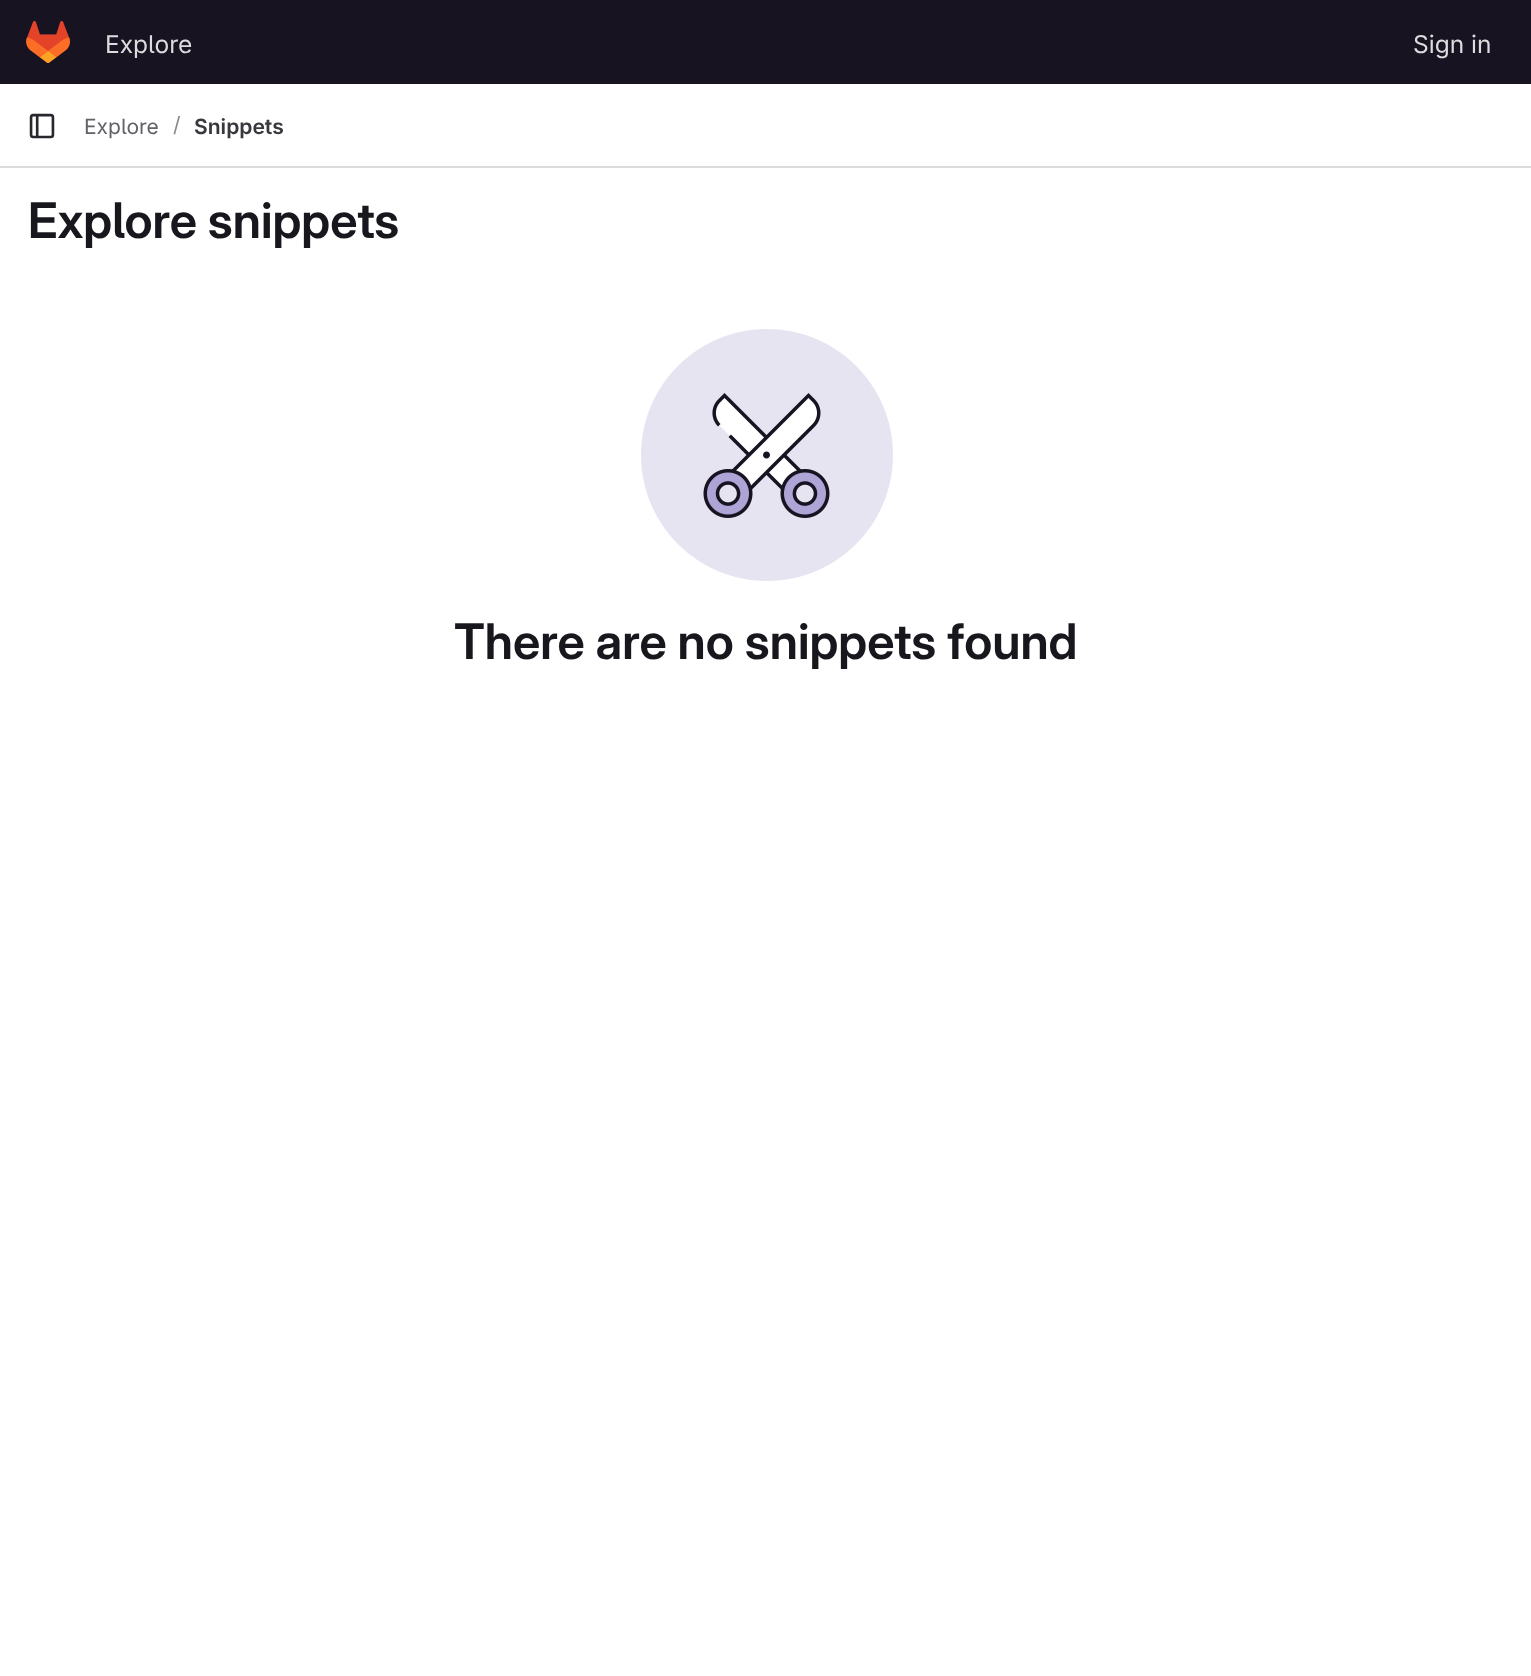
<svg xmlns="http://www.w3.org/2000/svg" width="1531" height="1676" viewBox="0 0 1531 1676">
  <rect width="100%" height="100%" fill="rgb(255,255,255)"/>
  <rect x="0" y="0" width="1531" height="84" fill="rgb(23,19,33)"/>
  <image x="26" y="21" width="44" height="42" href="pic1.png"/>
  <g font-family="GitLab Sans" font-size="24.5" fill="rgb(220,220,222)">
    <text x="105" y="53">Explore</text>
    <text x="1413" y="53">Sign in</text>
  </g>
  <rect x="0" y="166" width="1531" height="2" fill="rgb(220,220,222)"/>
  <image x="29" y="113" width="26" height="26" href="pic2.png"/>
  <text x="84" y="134" font-family="GitLab Sans" font-size="21" fill="rgb(98,97,104)">Explore</text>
  <text x="173" y="132" font-family="GitLab Sans" font-size="21" fill="rgb(137,136,141)">/</text>
  <text x="194" y="134" font-family="'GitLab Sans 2'" font-size="21" font-weight="600" fill="rgb(58,56,63)">Snippets</text>
  <text x="28" y="238" font-family="GitLab Sans" font-size="49" font-weight="600" fill="rgb(24,23,29)">Explore snippets</text>
  <image x="641" y="329" width="252" height="252" href="pic3.png"/>
  <text x="454" y="659" font-family="GitLab Sans" font-size="49" font-weight="600" fill="rgb(24,23,29)">There are no snippets found</text>
</svg>
